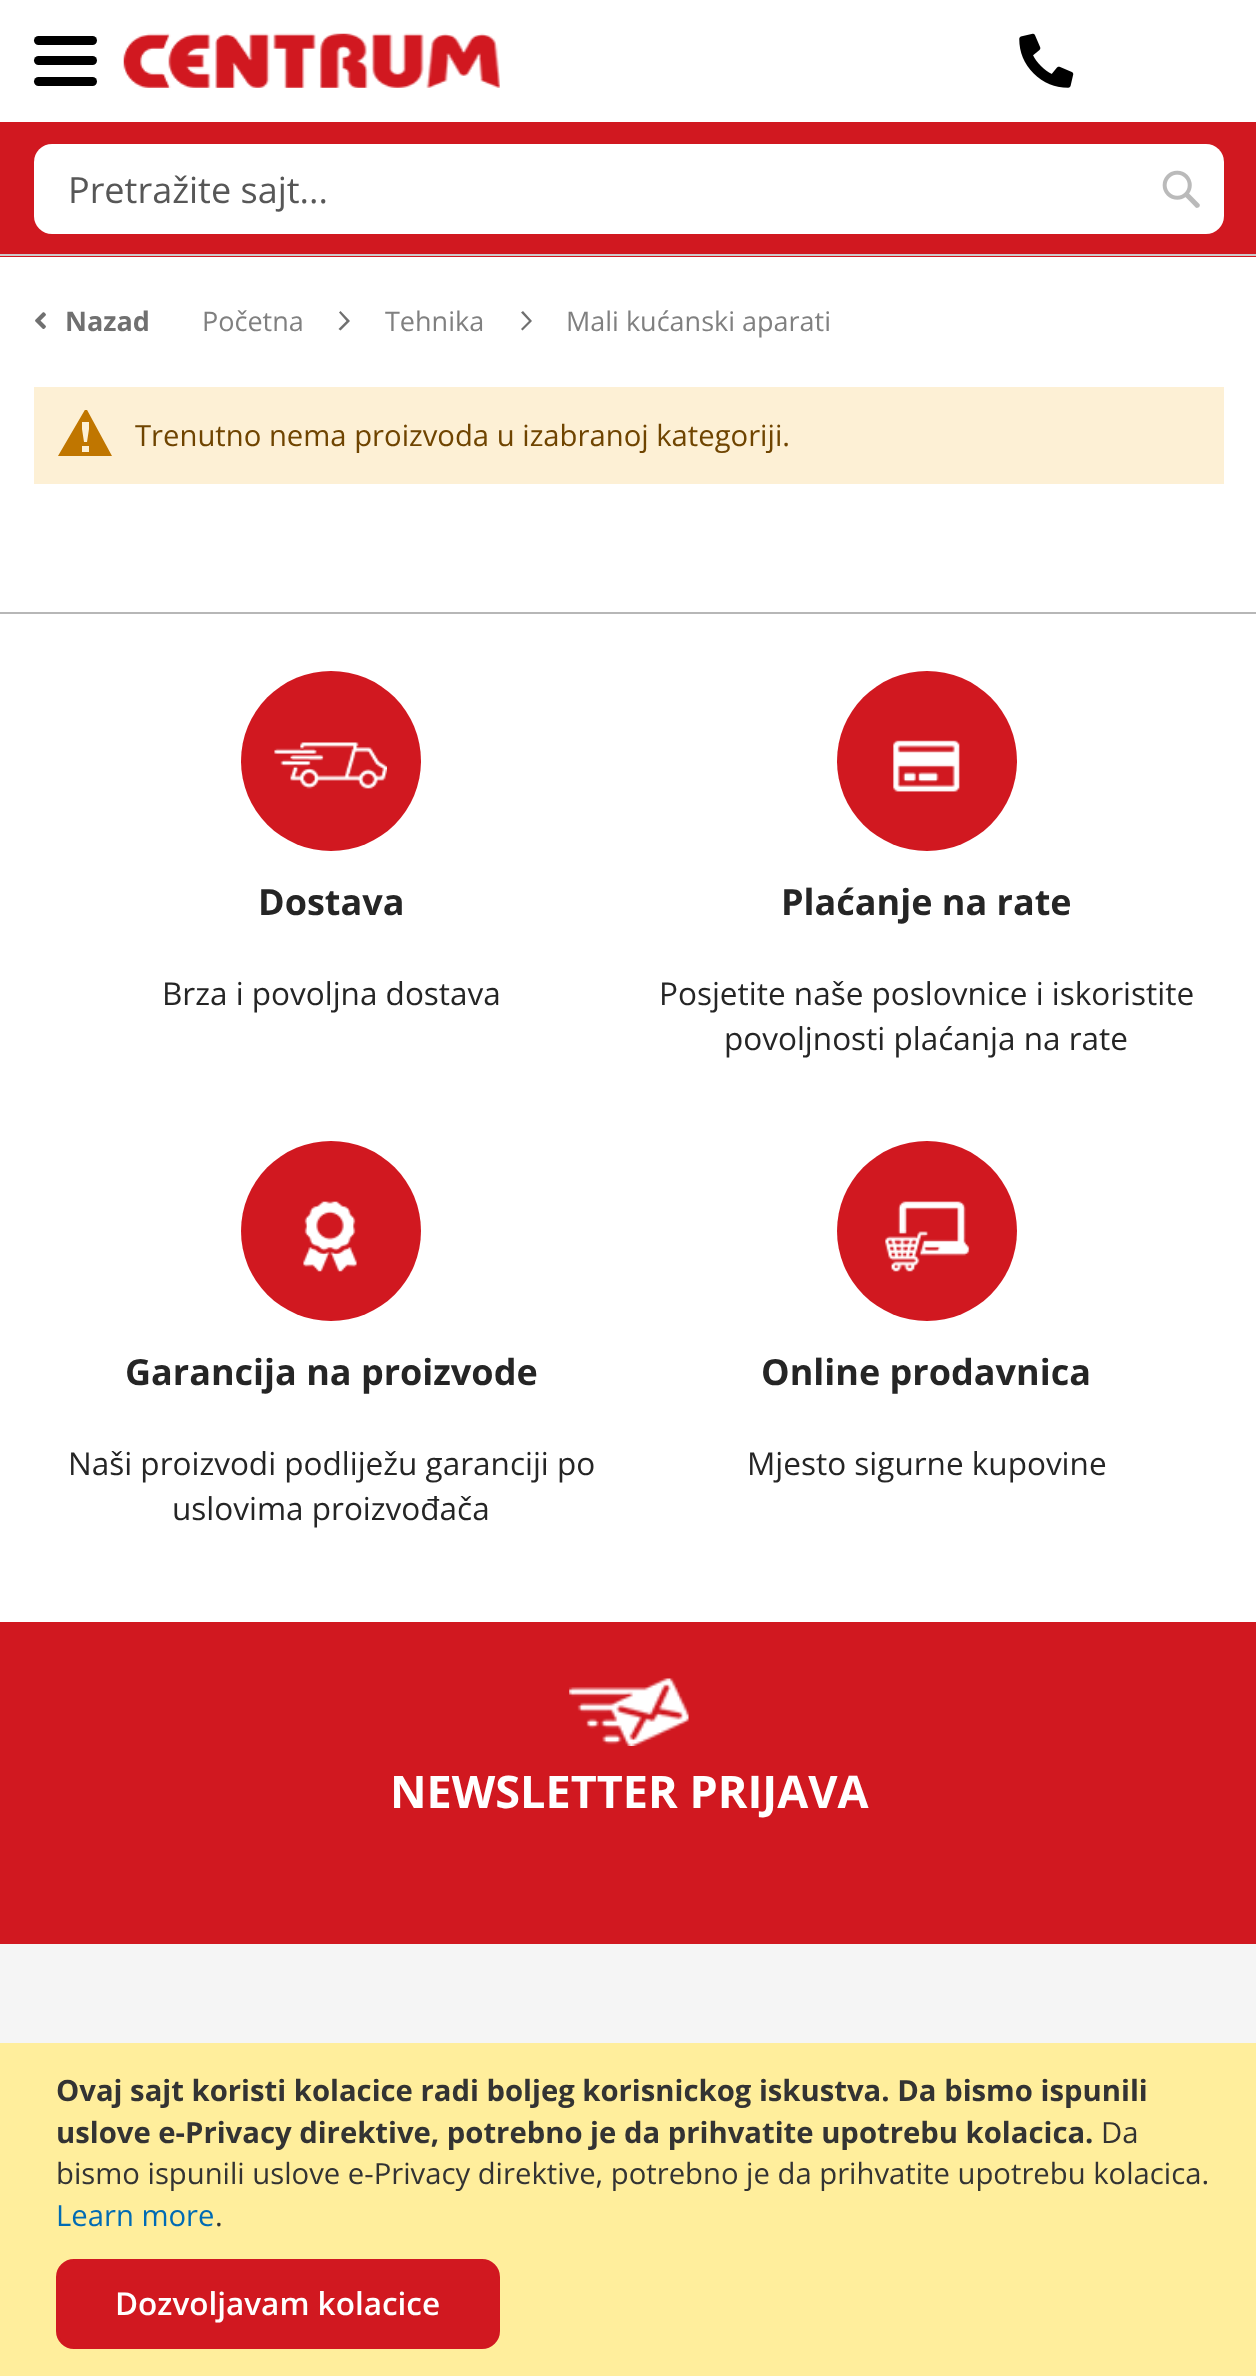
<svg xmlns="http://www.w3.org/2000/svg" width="1256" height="2376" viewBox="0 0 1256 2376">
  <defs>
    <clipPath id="clip1"><rect x="34" y="410" width="101" height="54"/></clipPath>
  </defs>
  <rect width="100%" height="100%" fill="rgb(255,255,255)"/>
  <rect x="0" y="122" width="1256" height="135" fill="rgb(209,24,32)"/>
  <rect x="0" y="254" width="1256" height="2" fill="rgb(204,204,204)"/>
  <rect x="34" y="36" width="63" height="9" rx="4.5" fill="rgb(0,0,0)"/>
  <rect x="34" y="56" width="63" height="9" rx="4.5" fill="rgb(0,0,0)"/>
  <rect x="34" y="77" width="63" height="9" rx="4.5" fill="rgb(0,0,0)"/>
  <image x="123" y="33" width="377" height="55" href="pic1.png"/>
  <image x="1019" y="33" width="55" height="55" href="pic2.png"/>
  <rect x="34" y="144" width="1190" height="90" rx="18" fill="rgb(255,255,255)"/>
  <text x="68" y="203" font-family="Open Sans" font-size="36" fill="rgb(87,87,87)">Pretražite sajt...</text>
  <image x="1162" y="170" width="38" height="38" href="pic3.png"/>
  <image x="35" y="312" width="11" height="17" href="pic4.png"/>
  <text x="65" y="331" font-family="Open Sans" font-size="27" font-weight="bold" fill="rgb(112,112,112)">Nazad</text>
  <text x="202" y="331" font-family="Open Sans" font-size="27" fill="rgb(128,128,128)">Početna</text>
  <path d="M350 321L340.5 311L339 312.5L346.5 321L338.5 329L340.5 330.5Z" fill="rgb(112,112,112)"/>
  <text x="385" y="331" font-family="Open Sans" font-size="27" fill="rgb(128,128,128)">Tehnika</text>
  <path d="M532 321L523 311L521 312.5L529 321L521 329L522.5 330.5Z" fill="rgb(112,112,112)"/>
  <text x="566" y="331" font-family="Open Sans" font-size="27" fill="rgb(128,128,128)">Mali kućanski aparati</text>
  <rect x="34" y="387" width="1190" height="97" fill="rgb(253,240,213)"/>
  <g clip-path="url(#clip1)">
    <path d="M86 408L58 456H112ZM89 422V429L87 442H84L82 429V422ZM82 452V446H89V452Z" fill="rgb(192,118,0)"/>
  </g>
  <text x="135" y="446" font-family="Open Sans" font-size="29.25" fill="rgb(111,68,0)">Trenutno nema proizvoda u izabranoj kategoriji.</text>
  <rect x="0" y="1944" width="1256" height="99" fill="rgb(245,245,245)"/>
  <rect x="0" y="612" width="1256" height="2" fill="rgb(183,183,183)"/>
  <circle cx="331" cy="761" r="90" fill="rgb(209,24,32)"/>
  <image x="274" y="742" width="113" height="47" href="pic5.png"/>
  <text x="258" y="915" font-family="Open Sans" font-size="36" font-weight="bold" fill="rgb(37,37,37)">Dostava</text>
  <text x="162" y="1005" font-family="Open Sans" font-size="31.5" fill="rgb(37,37,37)">Brza i povoljna dostava</text>
  <circle cx="927" cy="761" r="90" fill="rgb(209,24,32)"/>
  <image x="893" y="740" width="67" height="52" href="pic6.png"/>
  <text x="781" y="915" font-family="Open Sans" font-size="36" font-weight="bold" fill="rgb(37,37,37)">Plaćanje na rate</text>
  <g font-family="Open Sans" font-size="31.5" fill="rgb(37,37,37)">
    <text x="659" y="1005">Posjetite naše poslovnice i iskoristite</text>
    <text x="724" y="1050">povoljnosti plaćanja na rate</text>
  </g>
  <circle cx="331" cy="1231" r="90" fill="rgb(209,24,32)"/>
  <image x="303" y="1201" width="54" height="71" href="pic7.png"/>
  <text x="125" y="1385" font-family="Open Sans" font-size="36" font-weight="bold" fill="rgb(37,37,37)">Garancija na proizvode</text>
  <g font-family="Open Sans" font-size="31.5" fill="rgb(37,37,37)">
    <text x="68" y="1475">Naši proizvodi podliježu garanciji po</text>
    <text x="172" y="1520">uslovima proizvođača</text>
  </g>
  <circle cx="927" cy="1231" r="90" fill="rgb(209,24,32)"/>
  <image x="885" y="1201" width="85" height="71" href="pic8.png"/>
  <text x="761" y="1385" font-family="Open Sans" font-size="36" font-weight="bold" fill="rgb(37,37,37)">Online prodavnica</text>
  <text x="747" y="1475" font-family="Open Sans" font-size="31.5" fill="rgb(37,37,37)">Mjesto sigurne kupovine</text>
  <rect x="0" y="1622" width="1256" height="322" fill="rgb(209,24,32)"/>
  <image x="569" y="1678" width="120" height="68" href="pic9.png"/>
  <text x="390" y="1808" font-family="Open Sans" font-size="45" font-weight="bold" fill="rgb(255,255,255)">NEWSLETTER PRIJAVA</text>
  <rect x="0" y="2043" width="1256" height="333" fill="rgb(255,238,156)"/>
  <g font-family="Open Sans" font-size="29.25" font-weight="bold" fill="rgb(51,51,51)">
    <text>
      <tspan x="56" y="2101">Ovaj sajt koristi kolacice radi boljeg korisnickog iskustva. Da bismo ispunili</tspan>
      <tspan x="56" y="2143">uslove e-Privacy direktive, potrebno je da prihvatite upotrebu kolacica.</tspan>
    </text>
  </g>
  <g font-family="Open Sans" font-size="29.25" fill="rgb(51,51,51)">
    <text x="1101" y="2143">Da</text>
    <text x="56" y="2184">bismo ispunili uslove e-Privacy direktive, potrebno je da prihvatite upotrebu kolacica.</text>
  </g>
  <text x="56" y="2226" font-family="Open Sans" font-size="29.25" fill="rgb(0,107,180)">Learn more</text>
  <text x="215" y="2226" font-family="Open Sans" font-size="29.25" fill="rgb(51,51,51)">.</text>
  <rect x="57" y="2260" width="442" height="88" rx="17" fill="rgb(209,24,32)" stroke="rgb(209,24,32)" stroke-width="2"/>
  <text x="115" y="2315" font-family="Open Sans" font-size="31.5" font-weight="600" fill="rgb(255,255,255)">Dozvoljavam kolacice</text>
</svg>
